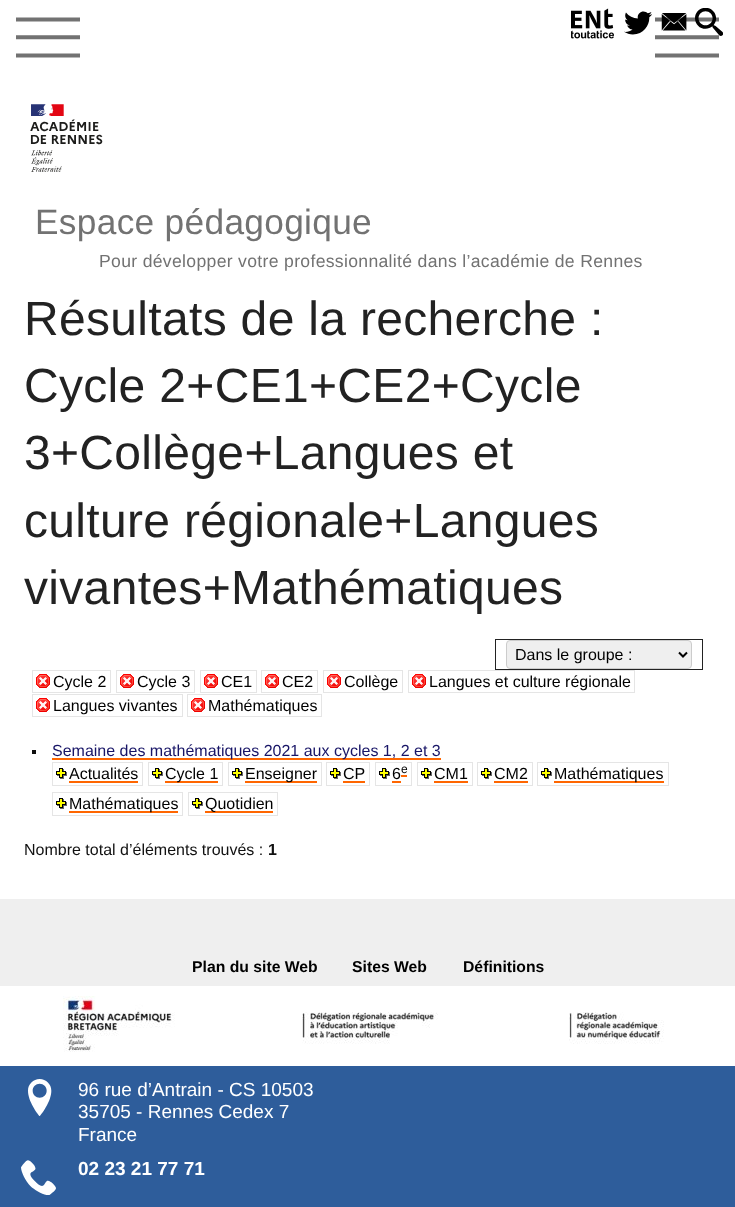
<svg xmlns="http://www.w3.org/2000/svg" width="735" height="1207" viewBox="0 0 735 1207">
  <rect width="100%" height="100%" fill="rgb(255,255,255)"/>
  <image x="571" y="8" width="43" height="31" href="pic1.png"/>
  <image x="624" y="11" width="28" height="24" href="pic2.png"/>
  <image x="655" y="17" width="64" height="41" href="pic5.png"/>
  <image x="661" y="13" width="26" height="18" href="pic3.png"/>
  <image x="695" y="8" width="28" height="28" href="pic4.png"/>
  <image x="16" y="17" width="64" height="41" href="pic5.png"/>
  <image x="30" y="104" width="73" height="68" href="pic6.png"/>
  <text x="35" y="234" font-family="Liberation Sans" font-size="35.25" letter-spacing="0.32" fill="rgb(114,114,114)">Espace pédagogique</text>
  <text x="99" y="267" font-family="Liberation Sans" font-size="17.6" letter-spacing="0.32" fill="rgb(114,114,114)">Pour développer votre professionnalité dans l’académie de Rennes</text>
  <g font-family="Liberation Sans" font-size="48" letter-spacing="0.32" fill="rgb(34,34,34)">
    <text>
      <tspan x="24" y="335">Résultats de la recherche :</tspan>
      <tspan x="24" y="402">Cycle 2+CE1+CE2+Cycle</tspan>
      <tspan x="24" y="469">3+Collège+Langues et</tspan>
      <tspan x="24" y="537">culture régionale+Langues</tspan>
      <tspan x="24" y="604">vivantes+Mathématiques</tspan>
    </text>
  </g>
  <rect x="495.5" y="639.5" width="207" height="30" fill="none" stroke="rgb(34,34,34)"/>
  <rect x="506.5" y="640.5" width="185" height="28" rx="3.5" fill="rgb(239,239,239)" stroke="rgb(204,204,204)"/>
  <path d="M679 652.5L683 656.5L687 652.5" fill="none" stroke="rgb(0,0,0)" stroke-width="2"/>
  <text x="515" y="660" font-family="Liberation Sans" font-size="16" fill="rgb(0,0,0)">Dans le groupe :</text>
  <image x="36" y="674" width="14" height="14" href="pic7.png"/>
  <rect x="32.5" y="670.5" width="78" height="22" fill="none" stroke="rgb(229,229,229)"/>
  <text x="53" y="687" font-family="Liberation Sans" font-size="16" fill="rgb(0,0,0)">Cycle 2</text>
  <image x="120" y="674" width="14" height="14" href="pic7.png"/>
  <rect x="116.5" y="670.5" width="78" height="22" fill="none" stroke="rgb(229,229,229)"/>
  <text x="137" y="687" font-family="Liberation Sans" font-size="16" fill="rgb(0,0,0)">Cycle 3</text>
  <image x="204" y="674" width="14" height="14" href="pic7.png"/>
  <rect x="200.5" y="670.5" width="56" height="22" fill="none" stroke="rgb(229,229,229)"/>
  <text x="221" y="687" font-family="Liberation Sans" font-size="16" fill="rgb(0,0,0)">CE1</text>
  <image x="265" y="674" width="14" height="14" href="pic7.png"/>
  <rect x="261.5" y="670.5" width="56" height="22" fill="none" stroke="rgb(229,229,229)"/>
  <text x="282" y="687" font-family="Liberation Sans" font-size="16" fill="rgb(0,0,0)">CE2</text>
  <image x="327" y="674" width="14" height="14" href="pic7.png"/>
  <rect x="323.5" y="670.5" width="79" height="22" fill="none" stroke="rgb(229,229,229)"/>
  <text x="344" y="687" font-family="Liberation Sans" font-size="16" fill="rgb(0,0,0)">Collège</text>
  <image x="412" y="674" width="14" height="14" href="pic7.png"/>
  <rect x="408.5" y="670.5" width="226" height="22" fill="none" stroke="rgb(229,229,229)"/>
  <text x="429" y="687" font-family="Liberation Sans" font-size="16" fill="rgb(0,0,0)">Langues et culture régionale</text>
  <image x="36" y="698" width="14" height="14" href="pic7.png"/>
  <rect x="32.5" y="694.5" width="150" height="22" fill="none" stroke="rgb(229,229,229)"/>
  <text x="53" y="711" font-family="Liberation Sans" font-size="16" fill="rgb(0,0,0)">Langues vivantes</text>
  <image x="191" y="698" width="14" height="14" href="pic7.png"/>
  <rect x="187.5" y="694.5" width="134" height="22" fill="none" stroke="rgb(229,229,229)"/>
  <text x="208" y="711" font-family="Liberation Sans" font-size="16" fill="rgb(0,0,0)">Mathématiques</text>
  <rect x="32" y="750" width="4" height="4" fill="rgb(14,14,14)"/>
  <rect x="52" y="758" width="389" height="2" fill="rgb(255,102,0)"/>
  <text x="52" y="756" font-family="Liberation Sans" font-size="16" fill="rgb(23,20,102)">Semaine des mathématiques 2021 aux cycles 1, 2 et 3</text>
  <image x="56" y="768" width="11" height="11" href="pic8.png"/>
  <rect x="52.5" y="762.5" width="90" height="23" fill="none" stroke="rgb(229,229,229)"/>
  <text x="69" y="779" font-family="Liberation Sans" font-size="16" fill="rgb(0,0,0)">Actualités</text>
  <rect x="69" y="781" width="69" height="2" fill="rgb(255,102,0)"/>
  <image x="152" y="768" width="11" height="11" href="pic8.png"/>
  <rect x="148.5" y="762.5" width="74" height="23" fill="none" stroke="rgb(229,229,229)"/>
  <rect x="165" y="781" width="53" height="2" fill="rgb(255,102,0)"/>
  <text x="165" y="779" font-family="Liberation Sans" font-size="16" fill="rgb(0,0,0)">Cycle 1</text>
  <image x="232" y="768" width="11" height="11" href="pic8.png"/>
  <rect x="228.5" y="762.5" width="93" height="23" fill="none" stroke="rgb(229,229,229)"/>
  <rect x="245" y="781" width="72" height="2" fill="rgb(255,102,0)"/>
  <text x="245" y="779" font-family="Liberation Sans" font-size="16" fill="rgb(0,0,0)">Enseigner</text>
  <image x="330" y="768" width="11" height="11" href="pic8.png"/>
  <rect x="326.5" y="762.5" width="43" height="23" fill="none" stroke="rgb(229,229,229)"/>
  <text x="343" y="779" font-family="Liberation Sans" font-size="16" fill="rgb(0,0,0)">CP</text>
  <rect x="343" y="781" width="22" height="2" fill="rgb(255,102,0)"/>
  <image x="379" y="768" width="11" height="11" href="pic8.png"/>
  <rect x="375.5" y="762.5" width="36" height="23" fill="none" stroke="rgb(229,229,229)"/>
  <text x="392" y="779" font-family="Liberation Sans" font-size="16" fill="rgb(0,0,0)">6</text>
  <rect x="392" y="781" width="9" height="2" fill="rgb(255,102,0)"/>
  <text x="401" y="773" font-family="Liberation Sans" font-size="12" fill="rgb(0,0,0)">e</text>
  <rect x="401" y="775" width="6" height="2" fill="rgb(255,102,0)"/>
  <image x="421" y="768" width="11" height="11" href="pic8.png"/>
  <rect x="417.5" y="762.5" width="55" height="23" fill="none" stroke="rgb(229,229,229)"/>
  <text x="434" y="779" font-family="Liberation Sans" font-size="16" fill="rgb(0,0,0)">CM1</text>
  <rect x="434" y="781" width="34" height="2" fill="rgb(255,102,0)"/>
  <image x="481" y="768" width="11" height="11" href="pic8.png"/>
  <rect x="477.5" y="762.5" width="55" height="23" fill="none" stroke="rgb(229,229,229)"/>
  <text x="494" y="779" font-family="Liberation Sans" font-size="16" fill="rgb(0,0,0)">CM2</text>
  <rect x="494" y="781" width="34" height="2" fill="rgb(255,102,0)"/>
  <image x="541" y="768" width="11" height="11" href="pic8.png"/>
  <rect x="537.5" y="762.5" width="131" height="23" fill="none" stroke="rgb(229,229,229)"/>
  <rect x="554" y="781" width="110" height="2" fill="rgb(255,102,0)"/>
  <text x="554" y="779" font-family="Liberation Sans" font-size="16" fill="rgb(0,0,0)">Mathématiques</text>
  <image x="56" y="798" width="11" height="11" href="pic8.png"/>
  <rect x="52.5" y="792.5" width="130" height="23" fill="none" stroke="rgb(229,229,229)"/>
  <rect x="69" y="811" width="109" height="2" fill="rgb(255,102,0)"/>
  <text x="69" y="809" font-family="Liberation Sans" font-size="16" fill="rgb(0,0,0)">Mathématiques</text>
  <image x="192" y="798" width="11" height="11" href="pic8.png"/>
  <rect x="188.5" y="792.5" width="89" height="23" fill="none" stroke="rgb(229,229,229)"/>
  <rect x="205" y="811" width="68" height="2" fill="rgb(255,102,0)"/>
  <text x="205" y="809" font-family="Liberation Sans" font-size="16" fill="rgb(0,0,0)">Quotidien</text>
  <text x="24" y="855" font-family="Liberation Sans" font-size="16" fill="rgb(17,17,17)">Nombre total d’éléments trouvés :</text>
  <text x="268" y="855" font-family="Liberation Sans" font-size="16" font-weight="bold" fill="rgb(17,17,17)">1</text>
  <rect x="0" y="899" width="735" height="87" fill="rgb(239,239,239)"/>
  <rect x="0" y="1066" width="735" height="141" fill="rgb(46,93,155)"/>
  <g font-family="Liberation Sans" font-size="15.75" font-weight="bold" fill="rgb(0,0,0)">
    <text x="192" y="972">Plan du site Web</text>
    <text x="352" y="972">Sites Web</text>
    <text x="463" y="972">Définitions</text>
  </g>
  <image x="63" y="996" width="112" height="56" href="pic9.png"/>
  <image x="302" y="1012" width="136" height="32" href="pic10.png"/>
  <image x="569" y="1012" width="95" height="32" href="pic11.png"/>
  <image x="28" y="1079" width="24" height="37" href="pic12.png"/>
  <g font-family="Liberation Sans" font-size="19" fill="rgb(255,255,255)">
    <text>
      <tspan x="78" y="1096">96 rue d’Antrain - CS 10503</tspan>
      <tspan x="78" y="1118">35705 - Rennes Cedex 7</tspan>
      <tspan x="78" y="1141">France</tspan>
    </text>
  </g>
  <image x="21" y="1160" width="35" height="35" href="pic13.png"/>
  <text x="78" y="1175" font-family="Liberation Sans" font-size="19" font-weight="bold" fill="rgb(255,255,255)">02 23 21 77 71</text>
</svg>
